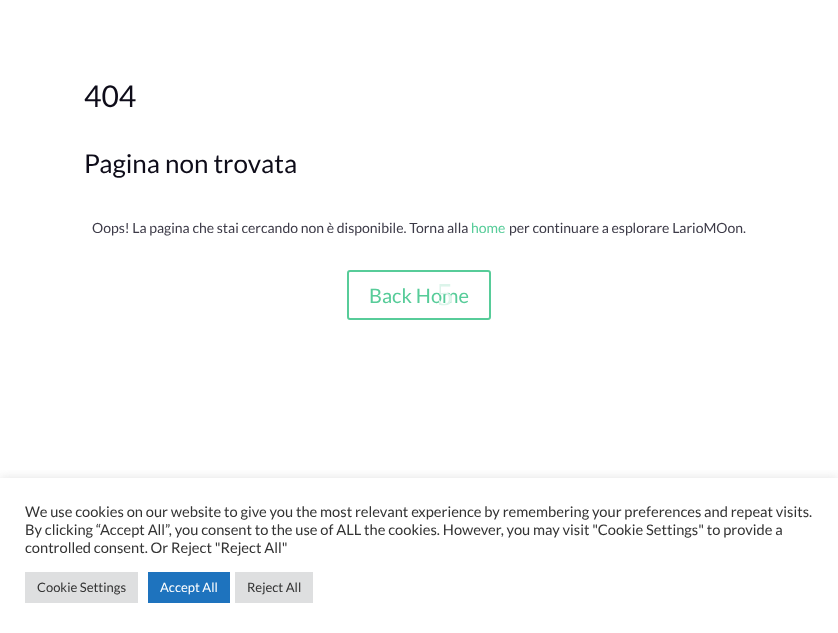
<svg xmlns="http://www.w3.org/2000/svg" width="838" height="633" viewBox="0 0 838 633">
  <defs>
    <clipPath id="clip1"><rect x="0" y="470" width="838" height="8"/></clipPath>
  </defs>
  <rect width="100%" height="100%" fill="rgb(255,255,255)"/>
  <text x="84" y="107" font-family="Lato" font-size="30" fill="rgb(14,12,25)">404</text>
  <text x="84" y="173" font-family="Lato" font-size="26" fill="rgb(14,12,25)">Pagina non trovata</text>
  <text x="92" y="233" font-family="Lato" font-size="14" fill="rgb(60,58,71)">Oops! La pagina che stai cercando non è disponibile. Torna alla</text>
  <text x="471" y="233" font-family="Lato" font-size="14" fill="rgb(87,204,153)">home</text>
  <text x="509" y="233" font-family="Lato" font-size="14" fill="rgb(60,58,71)">per continuare a esplorare LarioMOon.</text>
  <rect x="348" y="271" width="142" height="48" rx="2" fill="none" stroke="rgb(87,204,153)" stroke-width="2"/>
  <text x="369" y="303" font-family="Lato" font-size="20" fill="rgb(87,204,153)">Back Home</text>
  <text x="437" y="305" font-family="Liberation Serif" font-size="32" fill="rgb(220,244,234)">5</text>
  <g clip-path="url(#clip1)">
    <rect x="0" y="477" width="838" height="155" fill="rgba(172,171,171,0.3)" filter="blur(5px)"/>
  </g>
  <g font-family="Lato" font-size="14.67" fill="rgb(51,51,51)">
    <text>
      <tspan x="25" y="517">We use cookies on our website to give you the most relevant experience by remembering your preferences and repeat visits.</tspan>
      <tspan x="25" y="535">By clicking “Accept All”, you consent to the use of ALL the cookies. However, you may visit "Cookie Settings" to provide a</tspan>
      <tspan x="25" y="553">controlled consent. Or Reject "Reject All"</tspan>
    </text>
  </g>
  <rect x="25" y="572" width="113" height="31" fill="rgb(222,223,224)"/>
  <text x="37" y="592" font-family="Lato" font-size="13" fill="rgb(51,51,51)">Cookie Settings</text>
  <rect x="148" y="572" width="82" height="31" fill="rgb(30,115,190)"/>
  <text x="160" y="592" font-family="Lato" font-size="13" fill="rgb(255,255,255)">Accept All</text>
  <rect x="235" y="572" width="78" height="31" fill="rgb(222,223,224)"/>
  <text x="247" y="592" font-family="Lato" font-size="13" fill="rgb(51,51,51)">Reject All</text>
</svg>
